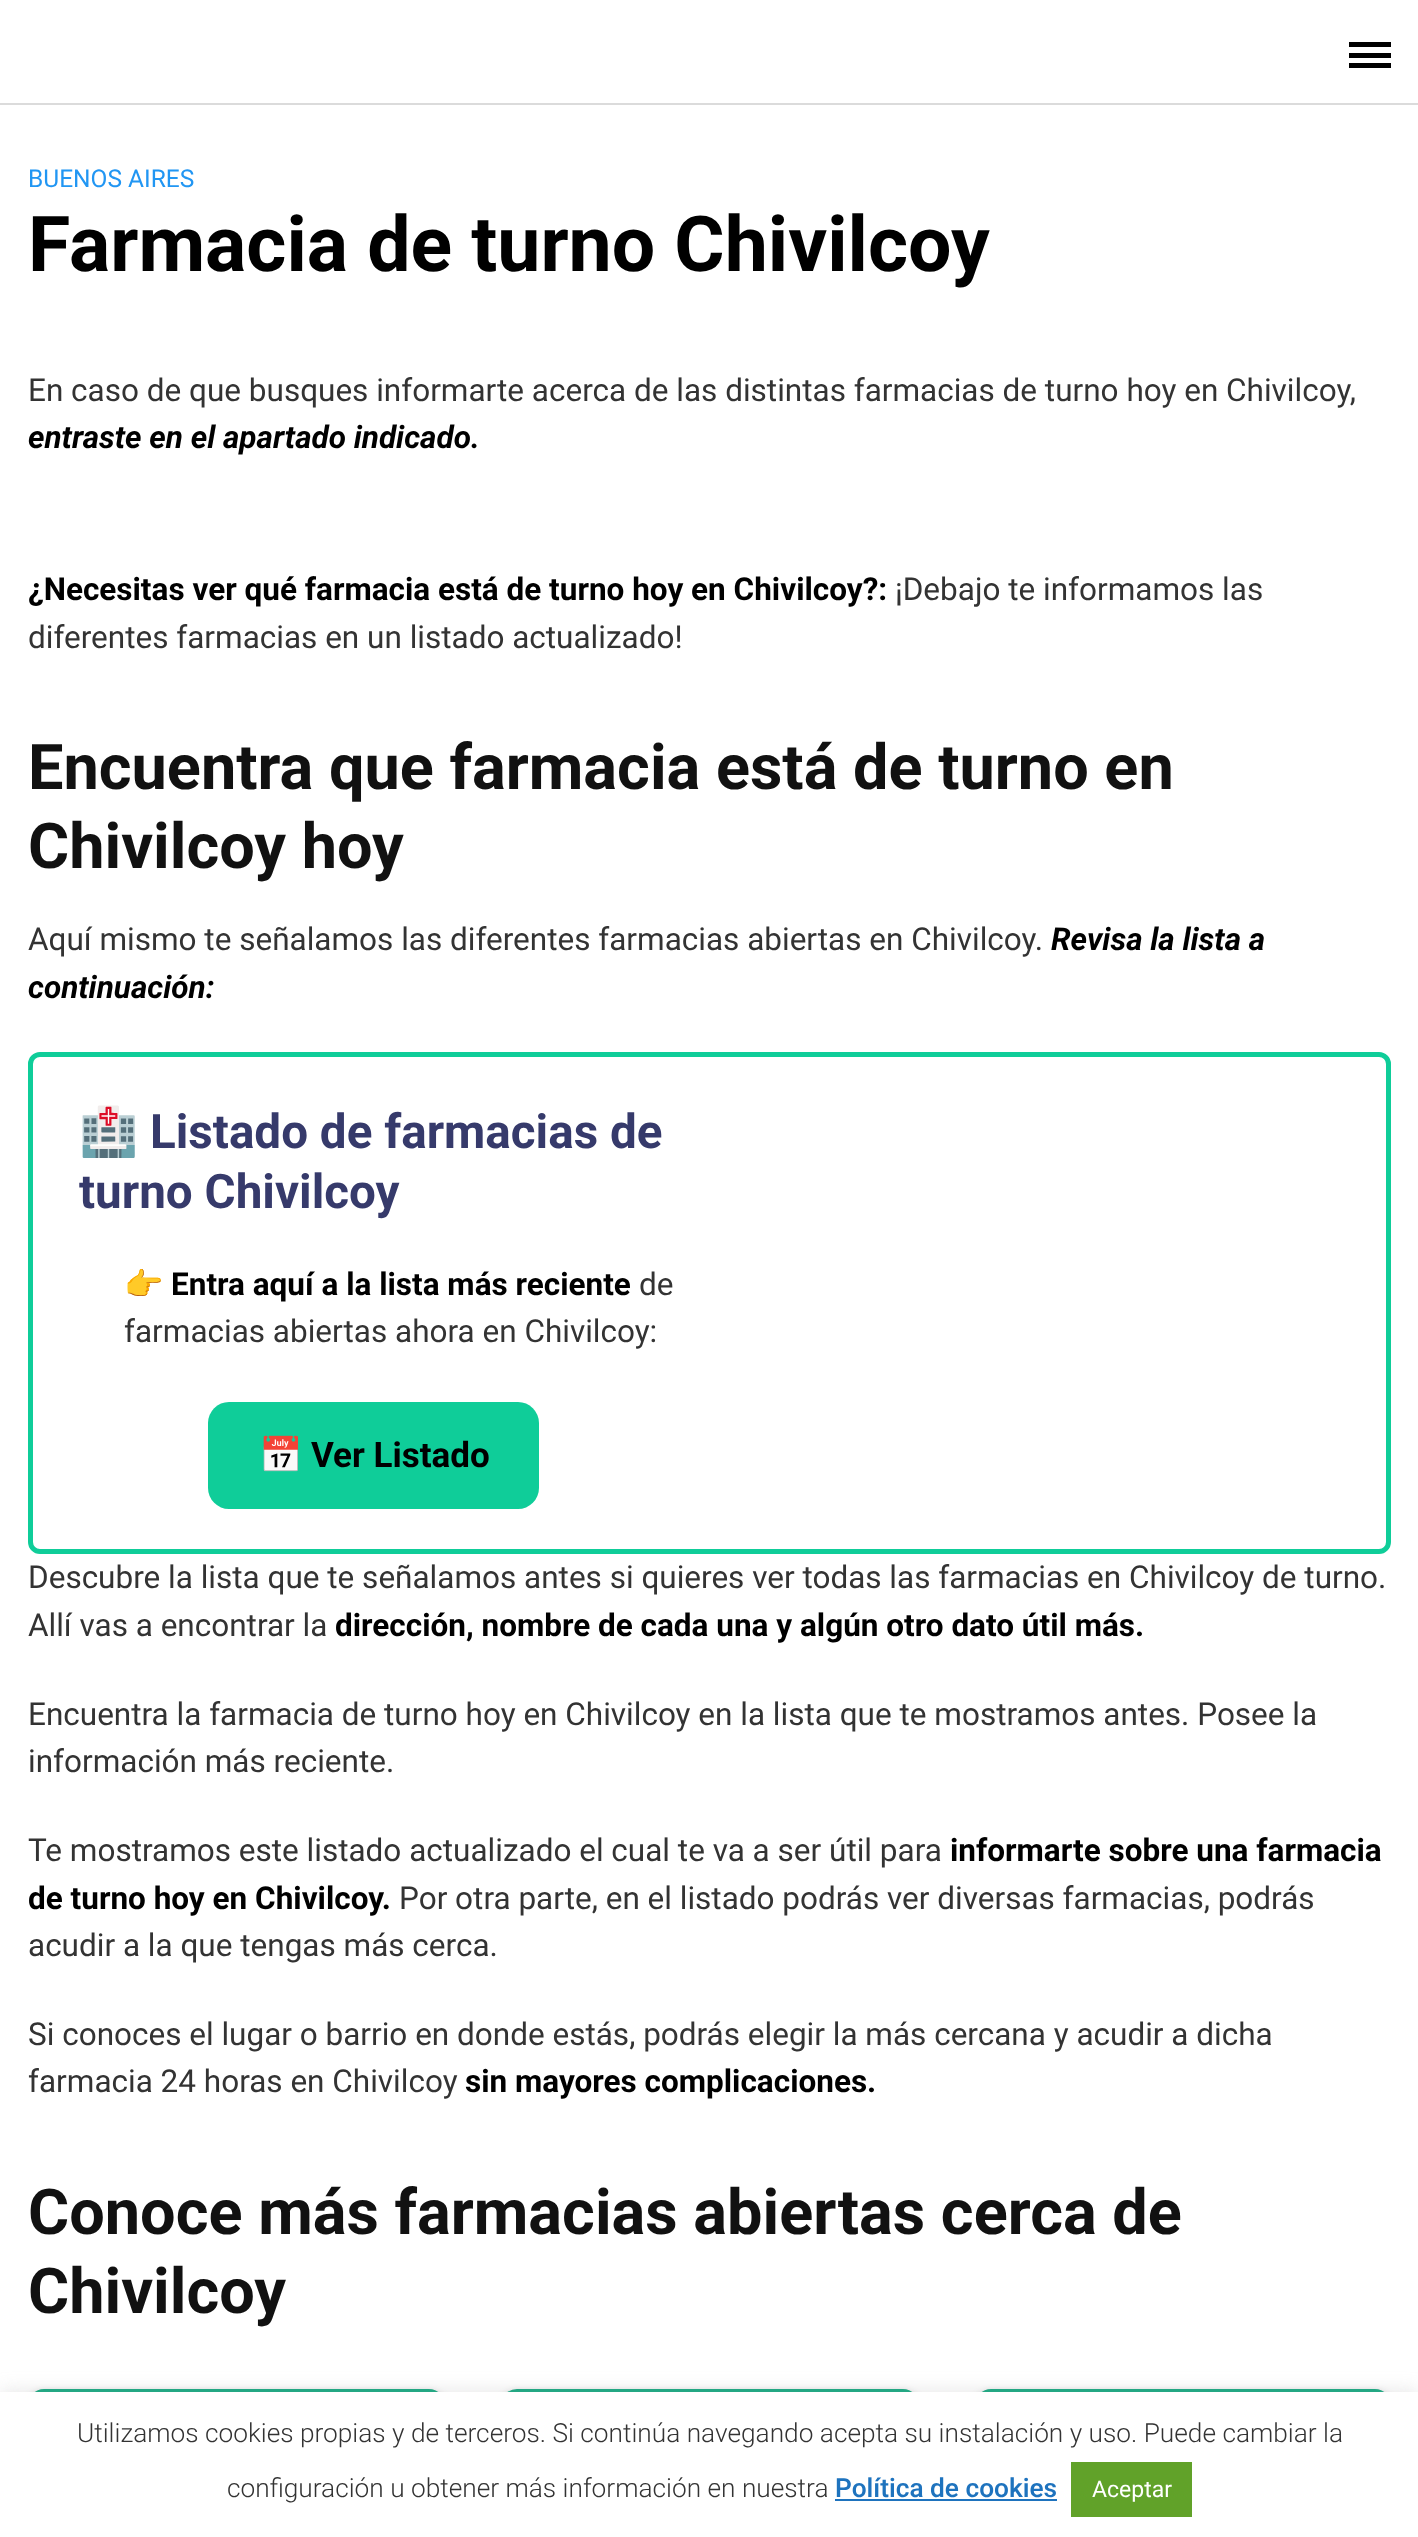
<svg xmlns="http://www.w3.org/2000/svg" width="1418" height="2537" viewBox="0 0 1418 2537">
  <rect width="100%" height="100%" fill="rgb(255,255,255)"/>
  <rect x="0" y="103" width="1418" height="2" fill="rgb(219,219,219)"/>
  <rect x="1349" y="53" width="42" height="5" fill="rgb(0,0,0)"/>
  <rect x="1349" y="42" width="42" height="5" fill="rgb(0,0,0)"/>
  <rect x="1349" y="63" width="42" height="5" fill="rgb(0,0,0)"/>
  <text x="28" y="187" font-family="Roboto" font-size="24.5" fill="rgb(33,150,243)">BUENOS AIRES</text>
  <text x="28" y="271" font-family="Roboto" font-size="77" font-weight="bold" fill="rgb(0,0,0)">Farmacia de turno Chivilcoy</text>
  <text x="28" y="401" font-family="Roboto" font-size="31.5" fill="rgb(51,51,51)">En caso de que busques informarte acerca de las distintas farmacias de turno hoy en Chivilcoy,</text>
  <text x="28" y="448" font-family="Roboto" font-size="31.5" font-weight="bold" font-style="italic" fill="rgb(0,0,0)">entraste en el apartado indicado.</text>
  <text x="28" y="600" font-family="Roboto" font-size="31.5" font-weight="bold" fill="rgb(0,0,0)">¿Necesitas ver qué farmacia está de turno hoy en Chivilcoy?:</text>
  <g font-family="Roboto" font-size="31.5" fill="rgb(51,51,51)">
    <text x="895" y="600">¡Debajo te informamos las</text>
    <text x="28" y="648">diferentes farmacias en un listado actualizado!</text>
  </g>
  <g font-family="Roboto" font-size="63" font-weight="bold" fill="rgb(17,17,17)">
    <text>
      <tspan x="28" y="789">Encuentra que farmacia está de turno en</tspan>
      <tspan x="28" y="868">Chivilcoy hoy</tspan>
    </text>
  </g>
  <text x="28" y="950" font-family="Roboto" font-size="31.5" fill="rgb(51,51,51)">Aquí mismo te señalamos las diferentes farmacias abiertas en Chivilcoy.</text>
  <g font-family="Roboto" font-size="31.5" font-weight="bold" font-style="italic" fill="rgb(0,0,0)">
    <text x="1051" y="950">Revisa la lista a</text>
    <text x="28" y="998">continuación:</text>
  </g>
  <rect x="30.5" y="1054.5" width="1358" height="497" rx="9.5" fill="none" stroke="rgb(15,205,153)" stroke-width="5"/>
  <text x="79" y="1148" font-family="Noto Color Emoji" font-size="47.6" font-weight="bold" fill="rgb(173,255,47)">🏥</text>
  <g font-family="Roboto" font-size="47.6" font-weight="bold" fill="rgb(54,58,107)">
    <text x="150" y="1148">Listado de farmacias de</text>
    <text x="79" y="1208">turno Chivilcoy</text>
  </g>
  <text x="124" y="1295" font-family="Noto Color Emoji" font-size="31.5" fill="rgb(255,0,0)">👉</text>
  <text x="171" y="1295" font-family="Roboto" font-size="31.5" font-weight="bold" fill="rgb(0,0,0)">Entra aquí a la lista más reciente</text>
  <g font-family="Roboto" font-size="31.5" fill="rgb(51,51,51)">
    <text x="639" y="1295">de</text>
    <text x="124" y="1342">farmacias abiertas ahora en Chivilcoy:</text>
  </g>
  <rect x="208" y="1402" width="331" height="107" rx="21" fill="rgb(15,205,153)"/>
  <text x="259" y="1467" font-family="Noto Color Emoji" font-size="35" fill="rgb(255,255,255)">📅</text>
  <text x="311" y="1467" font-family="Roboto" font-size="35" font-weight="bold" fill="rgb(0,0,0)">Ver Listado</text>
  <g font-family="Roboto" font-size="31.5" fill="rgb(51,51,51)">
    <text>
      <tspan x="28" y="1588">Descubre la lista que te señalamos antes si quieres ver todas las farmacias en Chivilcoy de turno.</tspan>
      <tspan x="28" y="1636">Allí vas a encontrar la</tspan>
    </text>
  </g>
  <text x="335" y="1636" font-family="Roboto" font-size="31.5" font-weight="bold" fill="rgb(0,0,0)">dirección, nombre de cada una y algún otro dato útil más.</text>
  <g font-family="Roboto" font-size="31.5" fill="rgb(51,51,51)">
    <text>
      <tspan x="28" y="1725">Encuentra la farmacia de turno hoy en Chivilcoy en la lista que te mostramos antes. Posee la</tspan>
      <tspan x="28" y="1772">información más reciente.</tspan>
    </text>
    <text x="28" y="1861">Te mostramos este listado actualizado el cual te va a ser útil para</text>
  </g>
  <g font-family="Roboto" font-size="31.5" font-weight="bold" fill="rgb(0,0,0)">
    <text x="950" y="1861">informarte sobre una farmacia</text>
    <text x="28" y="1909">de turno hoy en Chivilcoy.</text>
  </g>
  <g font-family="Roboto" font-size="31.5" fill="rgb(51,51,51)">
    <text x="399" y="1909">Por otra parte, en el listado podrás ver diversas farmacias, podrás</text>
    <text x="28" y="1956">acudir a la que tengas más cerca.</text>
    <text>
      <tspan x="28" y="2045">Si conoces el lugar o barrio en donde estás, podrás elegir la más cercana y acudir a dicha</tspan>
      <tspan x="28" y="2092">farmacia 24 horas en Chivilcoy</tspan>
    </text>
  </g>
  <text x="465" y="2092" font-family="Roboto" font-size="31.5" font-weight="bold" fill="rgb(0,0,0)">sin mayores complicaciones.</text>
  <g font-family="Roboto" font-size="63" font-weight="bold" fill="rgb(17,17,17)">
    <text>
      <tspan x="28" y="2234">Conoce más farmacias abiertas cerca de</tspan>
      <tspan x="28" y="2313">Chivilcoy</tspan>
    </text>
  </g>
  <rect x="28" y="2394" width="417" height="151" rx="16" fill="rgba(0,0,0,0.5)" filter="blur(4.5px)"/>
  <rect x="28" y="2389" width="417" height="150" rx="16" fill="rgb(13,166,124)"/>
  <rect x="501" y="2394" width="418" height="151" rx="16" fill="rgba(0,0,0,0.5)" filter="blur(4.5px)"/>
  <rect x="501" y="2389" width="418" height="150" rx="16" fill="rgb(13,166,124)"/>
  <rect x="975" y="2394" width="416" height="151" rx="16" fill="rgba(0,0,0,0.5)" filter="blur(4.5px)"/>
  <rect x="975" y="2389" width="416" height="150" rx="16" fill="rgb(13,166,124)"/>
  <rect x="0" y="2391" width="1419" height="145" fill="rgba(172,171,171,0.3)" filter="blur(9px)"/>
  <rect x="0" y="2392" width="1418" height="145" fill="rgb(255,255,255)"/>
  <g font-family="Roboto" font-size="26.25" font-weight="300" fill="rgb(51,51,51)">
    <text x="77" y="2442">Utilizamos cookies propias y de terceros. Si continúa navegando acepta su instalación y uso. Puede cambiar la</text>
    <text x="227" y="2497">configuración u obtener más información en nuestra</text>
  </g>
  <text x="835" y="2497" font-family="Roboto" font-size="26.25" font-weight="500" fill="rgb(30,115,190)">Política de cookies</text>
  <rect x="835" y="2499" width="222" height="2" fill="rgb(30,115,190)"/>
  <rect x="1071" y="2462" width="121" height="55" fill="rgb(97,162,41)"/>
  <text x="1092" y="2497" font-family="Roboto" font-size="23" fill="rgb(255,255,255)">Aceptar</text>
</svg>
